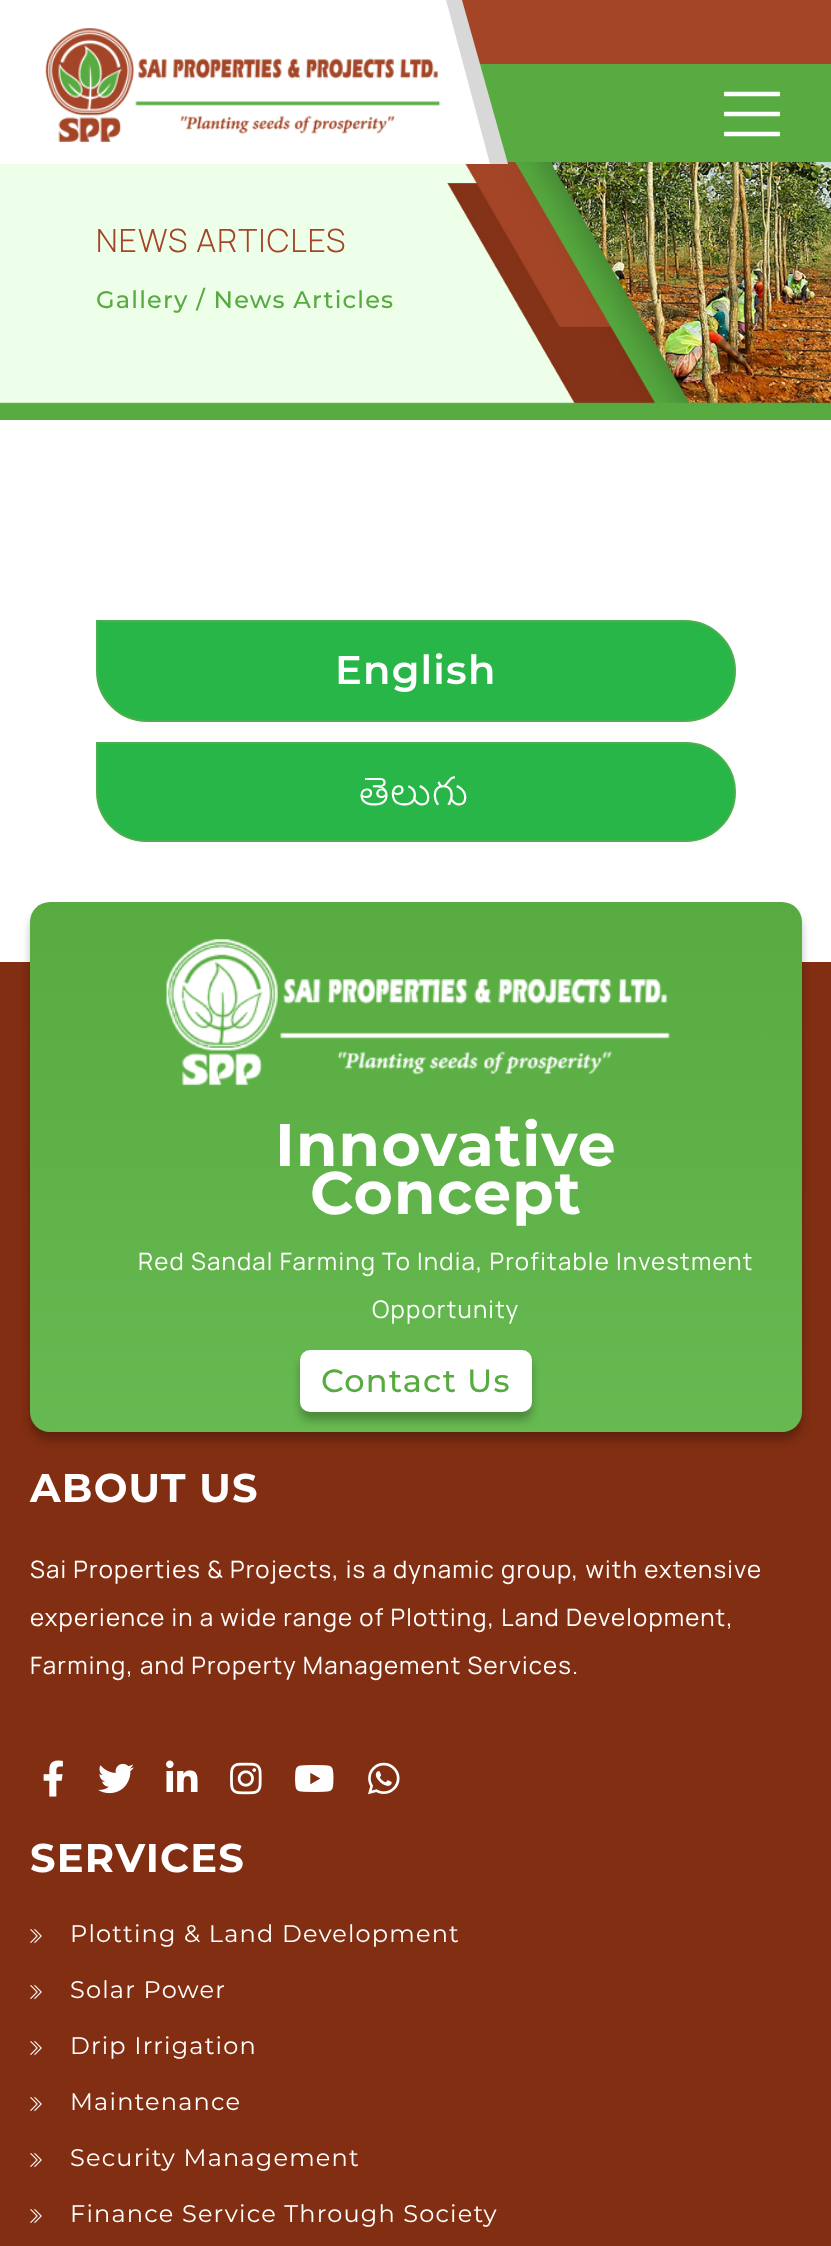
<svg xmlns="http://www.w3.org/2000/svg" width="831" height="2246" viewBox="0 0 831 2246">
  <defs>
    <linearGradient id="g1" gradientUnits="userSpaceOnUse" x1="416" y1="902" x2="416" y2="1432"><stop offset="0" stop-color="rgb(87,171,64)"/><stop offset="1" stop-color="rgb(103,185,81)"/></linearGradient>
  </defs>
  <rect width="100%" height="100%" fill="rgb(255,255,255)"/>
  <rect x="462" y="0" width="369" height="64" fill="rgb(163,69,38)"/>
  <rect x="480" y="64" width="351" height="98" fill="rgb(87,171,64)"/>
  <image x="0" y="162" width="831" height="258" href="pic3.png"/>
  <path d="M0 0V164H508L462 0Z" fill="rgb(217,216,216)"/>
  <path d="M0 0V164H490L446 0Z" fill="rgb(255,255,255)"/>
  <image x="45" y="28" width="396" height="115" href="pic1.png"/>
  <image x="724" y="91" width="56" height="46" href="pic2.png"/>
  <text x="96" y="252" font-family="Manrope" font-size="32" font-weight="300" letter-spacing="1.2" fill="rgb(163,69,38)">NEWS ARTICLES</text>
  <text x="96" y="308" font-family="Montserrat" font-size="24" font-weight="500" letter-spacing="1.2" fill="rgb(87,171,64)">Gallery / News Articles</text>
  <path d="M97 621H685C712.5 621 735 643.5 735 671C735 698.5 712.5 721 685 721H147C119.5 721 97 698.5 97 671Z" fill="rgb(40,182,72)" stroke="rgb(76,174,76)" stroke-width="2"/>
  <text x="335" y="684" font-family="Montserrat" font-size="40" font-weight="600" letter-spacing="1.2" fill="rgb(255,255,255)">English</text>
  <path d="M97 743H686C713 743 735 765 735 792C735 819 713 841 686 841H146C119 841 97 819 97 792Z" fill="rgb(40,182,72)" stroke="rgb(76,174,76)" stroke-width="2"/>
  <text x="359" y="805" font-family="Noto Sans Telugu" font-size="40" font-weight="300" letter-spacing="1.2" fill="rgb(255,255,255)">తెలుగు</text>
  <rect x="0" y="962" width="831" height="1284" fill="rgb(129,46,18)"/>
  <rect x="30" y="910" width="772" height="530" rx="20" fill="rgba(0,0,0,0.25)" filter="blur(4px)"/>
  <rect x="30" y="902" width="772" height="530" rx="20" fill="url(#g1)"/>
  <image x="166" y="939" width="504" height="147" href="pic4.png"/>
  <g font-family="Montserrat" font-size="60" font-weight="bold" letter-spacing="1.2" fill="rgb(255,255,255)">
    <text x="275" y="1166">Innovative</text>
    <text x="310" y="1214">Concept</text>
  </g>
  <g font-family="Manrope" font-size="24" letter-spacing="1.2" fill="rgb(255,255,255)">
    <text x="138" y="1270">Red Sandal Farming To India, Profitable Investment</text>
    <text x="372" y="1318">Opportunity</text>
  </g>
  <rect x="300" y="1358" width="232" height="62" rx="10" fill="rgba(0,0,0,0.25)" filter="blur(4px)"/>
  <rect x="300" y="1350" width="232" height="62" rx="10" fill="rgb(255,255,255)"/>
  <text x="321" y="1392" font-family="Montserrat" font-size="32" font-weight="500" letter-spacing="1.2" fill="rgb(87,171,64)">Contact Us</text>
  <text x="30" y="1502" font-family="Montserrat" font-size="40" font-weight="bold" letter-spacing="1.2" fill="rgb(255,255,255)">ABOUT US</text>
  <g font-family="Manrope" font-size="24" letter-spacing="1.2" fill="rgb(255,255,255)">
    <text x="30" y="1578">Sai Properties &amp; Projects, is a dynamic group, with extensive</text>
    <text x="30" y="1626">experience in a wide range of Plotting, Land Development,</text>
    <text x="30" y="1674">Farming, and Property Management Services.</text>
  </g>
  <image x="43" y="1760" width="20" height="37" href="pic5.png"/>
  <image x="98" y="1763" width="36" height="31" href="pic6.png"/>
  <image x="166" y="1760" width="32" height="32" href="pic7.png"/>
  <image x="230" y="1762" width="32" height="33" href="pic8.png"/>
  <image x="295" y="1765" width="39" height="27" href="pic9.png"/>
  <image x="368" y="1762" width="32" height="33" href="pic10.png"/>
  <text x="30" y="1872" font-family="Montserrat" font-size="40" font-weight="bold" letter-spacing="1.2" fill="rgb(255,255,255)">SERVICES</text>
  <image x="30" y="1929" width="12" height="14" href="pic11.png"/>
  <text x="70" y="1942" font-family="Montserrat" font-size="24" letter-spacing="1.2" fill="rgb(255,255,255)">Plotting &amp; Land Development</text>
  <image x="30" y="1985" width="12" height="14" href="pic11.png"/>
  <text x="70" y="1998" font-family="Montserrat" font-size="24" letter-spacing="1.2" fill="rgb(255,255,255)">Solar Power</text>
  <image x="30" y="2041" width="12" height="14" href="pic11.png"/>
  <text x="70" y="2054" font-family="Montserrat" font-size="24" letter-spacing="1.2" fill="rgb(255,255,255)">Drip Irrigation</text>
  <image x="30" y="2097" width="12" height="14" href="pic11.png"/>
  <text x="70" y="2110" font-family="Montserrat" font-size="24" letter-spacing="1.2" fill="rgb(255,255,255)">Maintenance</text>
  <image x="30" y="2153" width="12" height="14" href="pic11.png"/>
  <text x="70" y="2166" font-family="Montserrat" font-size="24" letter-spacing="1.2" fill="rgb(255,255,255)">Security Management</text>
  <image x="30" y="2209" width="12" height="14" href="pic11.png"/>
  <text x="70" y="2222" font-family="Montserrat" font-size="24" letter-spacing="1.2" fill="rgb(255,255,255)">Finance Service Through Society</text>
</svg>
